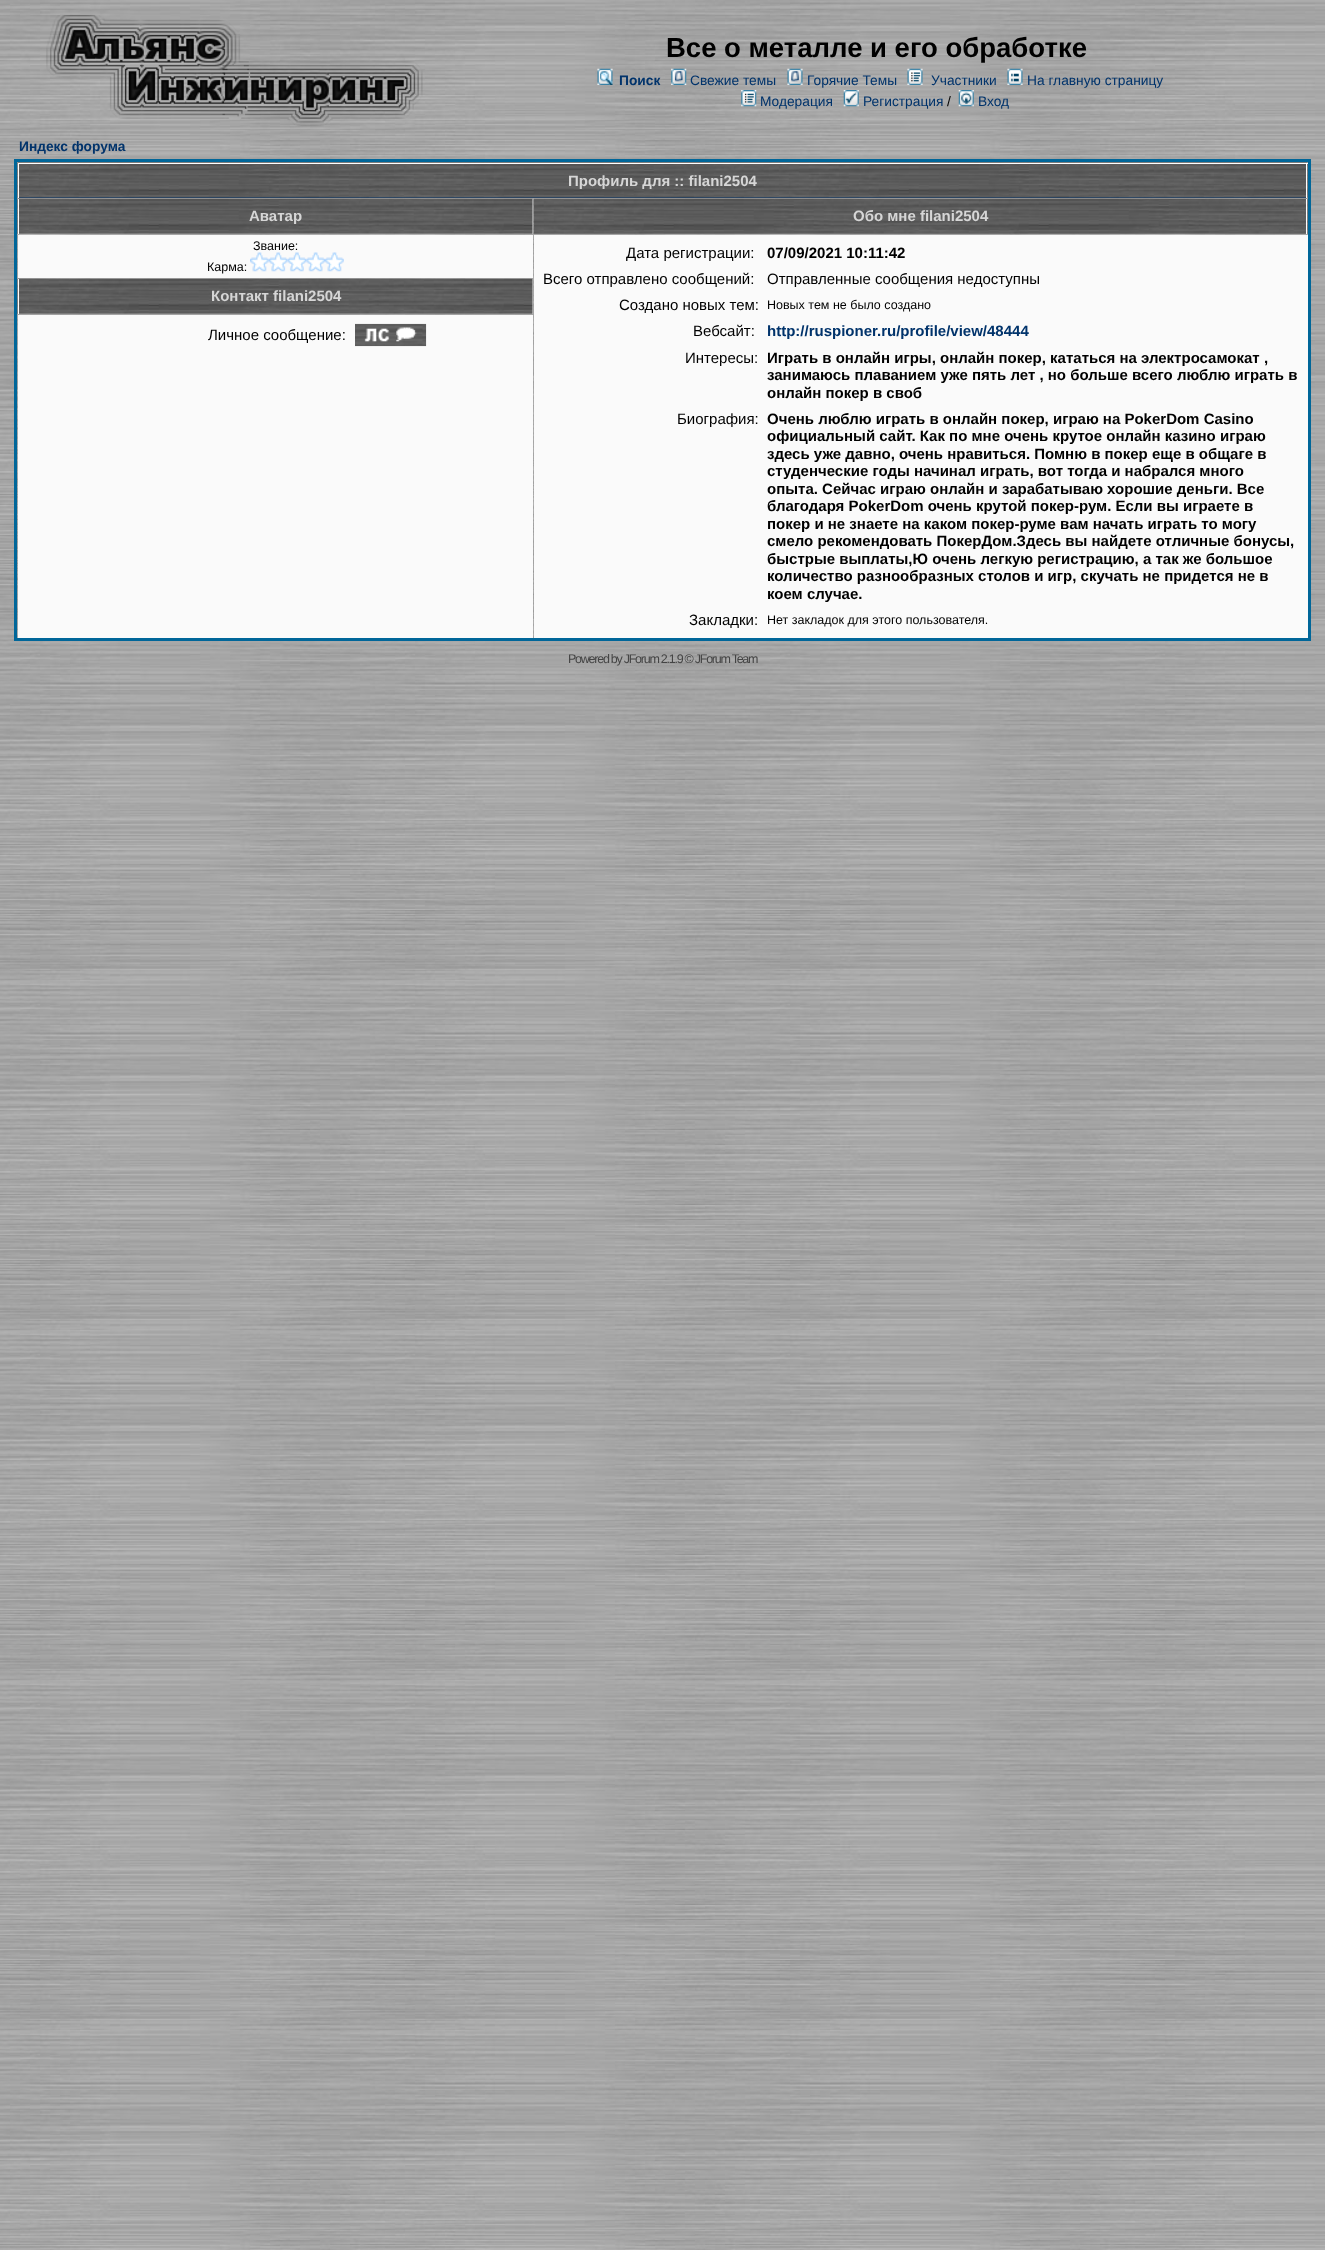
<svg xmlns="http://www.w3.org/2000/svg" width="1325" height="2250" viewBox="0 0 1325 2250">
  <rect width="100%" height="100%" fill="rgb(255,255,255)"/>
  <image x="0" y="0" width="1325" height="2250" href="pic1.png"/>
  <image x="46" y="15" width="377" height="112" href="pic2.png"/>
  <text x="666" y="57" font-family="Liberation Sans" font-size="27.5" font-weight="bold" fill="rgb(0,0,0)">Все о металле и его обработке</text>
  <image x="597" y="68" width="16" height="17" href="pic3.png"/>
  <text x="619" y="85" font-family="Liberation Sans" font-size="13.75" font-weight="bold" fill="rgb(1,51,107)">Поиск</text>
  <image x="671" y="68" width="16" height="17" href="pic4.png"/>
  <text x="690" y="85" font-family="Liberation Sans" font-size="13.75" fill="rgb(1,51,107)">Свежие темы</text>
  <image x="787" y="68" width="16" height="17" href="pic5.png"/>
  <text x="807" y="85" font-family="Liberation Sans" font-size="13.75" fill="rgb(1,51,107)">Горячие Темы</text>
  <image x="907" y="68" width="16" height="17" href="pic6.png"/>
  <text x="931" y="85" font-family="Liberation Sans" font-size="13.75" fill="rgb(1,51,107)">Участники</text>
  <image x="1007" y="68" width="16" height="17" href="pic7.png"/>
  <text x="1027" y="85" font-family="Liberation Sans" font-size="13.75" fill="rgb(1,51,107)">На главную страницу</text>
  <image x="741" y="90" width="16" height="17" href="pic8.png"/>
  <text x="760" y="106" font-family="Liberation Sans" font-size="13.75" fill="rgb(1,51,107)">Модерация</text>
  <image x="843" y="90" width="16" height="17" href="pic9.png"/>
  <text x="863" y="106" font-family="Liberation Sans" font-size="13.75" fill="rgb(1,51,107)">Регистрация</text>
  <text x="947" y="106" font-family="Liberation Sans" font-size="13.75" fill="rgb(0,0,0)">/</text>
  <image x="958" y="90" width="16" height="17" href="pic10.png"/>
  <text x="978" y="106" font-family="Liberation Sans" font-size="13.75" fill="rgb(1,51,107)">Вход</text>
  <text x="19" y="151" font-family="Liberation Sans" font-size="13.75" font-weight="bold" fill="rgb(1,51,107)">Индекс форума</text>
  <rect x="15.5" y="160.5" width="1294" height="479" fill="none" stroke="rgb(0,102,153)" stroke-width="3"/>
  <rect x="19" y="197" width="1287" height="1" fill="rgb(1,51,107)"/>
  <image x="17" y="162" width="1291" height="36" href="pic11.png"/>
  <rect x="18" y="163" width="1290" height="1" fill="rgb(255,255,255)"/>
  <rect x="1306" y="163" width="1" height="35" fill="rgb(255,255,255)"/>
  <rect x="18" y="163" width="1" height="35" fill="rgb(255,255,255)"/>
  <text x="568" y="186" font-family="Liberation Sans" font-size="15" font-weight="bold" fill="rgb(214,214,214)">Профиль для :: filani2504</text>
  <rect x="19" y="199" width="514" height="35" fill="rgb(223,223,223)"/>
  <image x="17" y="198" width="516" height="36" href="pic12.png"/>
  <rect x="18" y="199" width="1" height="35" fill="rgb(255,255,255)"/>
  <text x="249" y="221" font-family="Liberation Sans" font-size="15" font-weight="bold" fill="rgb(214,214,214)">Аватар</text>
  <image x="533" y="198" width="775" height="36" href="pic13.png"/>
  <rect x="1306" y="199" width="1" height="35" fill="rgb(255,255,255)"/>
  <text x="853" y="221" font-family="Liberation Sans" font-size="15" font-weight="bold" fill="rgb(214,214,214)">Обо мне filani2504</text>
  <rect x="18" y="235" width="515" height="43" fill="rgb(250,250,250)"/>
  <g font-family="Liberation Sans" font-size="12.5" fill="rgb(0,0,0)">
    <text x="253" y="250">Звание:</text>
    <text x="207" y="271">Карма:</text>
  </g>
  <image x="250" y="252" width="19" height="20" href="pic14.png"/>
  <image x="268" y="252" width="20" height="20" href="pic15.png"/>
  <image x="287" y="252" width="20" height="20" href="pic16.png"/>
  <image x="306" y="252" width="19" height="20" href="pic17.png"/>
  <image x="325" y="252" width="19" height="20" href="pic14.png"/>
  <rect x="534" y="235" width="774" height="403" fill="rgb(250,250,250)"/>
  <text x="626" y="258" font-family="Liberation Sans" font-size="15" fill="rgb(0,0,0)">Дата регистрации:</text>
  <text x="767" y="258" font-family="Liberation Sans" font-size="15" font-weight="bold" fill="rgb(0,0,0)">07/09/2021 10:11:42</text>
  <g font-family="Liberation Sans" font-size="15" fill="rgb(0,0,0)">
    <text x="543" y="284">Всего отправлено сообщений:</text>
    <text x="767" y="284">Отправленные сообщения недоступны</text>
    <text x="619" y="310">Создано новых тем:</text>
  </g>
  <text x="767" y="309" font-family="Liberation Sans" font-size="12.5" fill="rgb(0,0,0)">Новых тем не было создано</text>
  <text x="693" y="336" font-family="Liberation Sans" font-size="15" fill="rgb(0,0,0)">Вебсайт:</text>
  <text x="767" y="336" font-family="Liberation Sans" font-size="15" font-weight="bold" fill="rgb(1,51,107)">http://ruspioner.ru/profile/view/48444</text>
  <text x="685" y="363" font-family="Liberation Sans" font-size="15" fill="rgb(0,0,0)">Интересы:</text>
  <g font-family="Liberation Sans" font-size="15" font-weight="bold" fill="rgb(0,0,0)">
    <text>
      <tspan x="767" y="363">Играть в онлайн игры, онлайн покер, кататься на электросамокат ,</tspan>
      <tspan x="767" y="380">занимаюсь плаванием уже пять лет , но больше всего люблю играть в</tspan>
      <tspan x="767" y="398">онлайн покер в своб</tspan>
    </text>
  </g>
  <text x="677" y="424" font-family="Liberation Sans" font-size="15" fill="rgb(0,0,0)">Биография:</text>
  <g font-family="Liberation Sans" font-size="15" font-weight="bold" fill="rgb(0,0,0)">
    <text>
      <tspan x="767" y="424">Очень люблю играть в онлайн покер, играю на PokerDom Casino</tspan>
      <tspan x="767" y="441">официальный сайт. Как по мне очень крутое онлайн казино играю</tspan>
      <tspan x="767" y="459">здесь уже давно, очень нравиться. Помню в покер еще в общаге в</tspan>
      <tspan x="767" y="476">студенческие годы начинал играть, вот тогда и набрался много</tspan>
      <tspan x="767" y="494">опыта. Сейчас играю онлайн и зарабатываю хорошие деньги. Все</tspan>
      <tspan x="767" y="511">благодаря PokerDom очень крутой покер-рум. Если вы играете в</tspan>
      <tspan x="767" y="529">покер и не знаете на каком покер-руме вам начать играть то могу</tspan>
      <tspan x="767" y="546">смело рекомендовать ПокерДом.Здесь вы найдете отличные бонусы,</tspan>
      <tspan x="767" y="564">быстрые выплаты,Ю очень легкую регистрацию, а так же большое</tspan>
      <tspan x="767" y="581">количество разнообразных столов и игр, скучать не придется не в</tspan>
      <tspan x="767" y="599">коем случае.</tspan>
    </text>
  </g>
  <text x="689" y="625" font-family="Liberation Sans" font-size="15" fill="rgb(0,0,0)">Закладки:</text>
  <text x="767" y="624" font-family="Liberation Sans" font-size="12.5" fill="rgb(0,0,0)">Нет закладок для этого пользователя.</text>
  <rect x="19" y="279" width="514" height="35" fill="rgb(223,223,223)"/>
  <image x="17" y="278" width="516" height="36" href="pic18.png"/>
  <rect x="18" y="279" width="1" height="35" fill="rgb(255,255,255)"/>
  <text x="211" y="301" font-family="Liberation Sans" font-size="15" font-weight="bold" fill="rgb(214,214,214)">Контакт filani2504</text>
  <rect x="18" y="315" width="515" height="323" fill="rgb(250,250,250)"/>
  <text x="208" y="340" font-family="Liberation Sans" font-size="15" fill="rgb(0,0,0)">Личное сообщение:</text>
  <image x="355" y="323" width="72" height="24" href="pic19.png"/>
  <text x="568" y="663" font-family="Liberation Sans" font-size="12.5" letter-spacing="-1.25" fill="rgb(68,68,68)">Powered by JForum 2.1.9 © JForum Team</text>
</svg>
